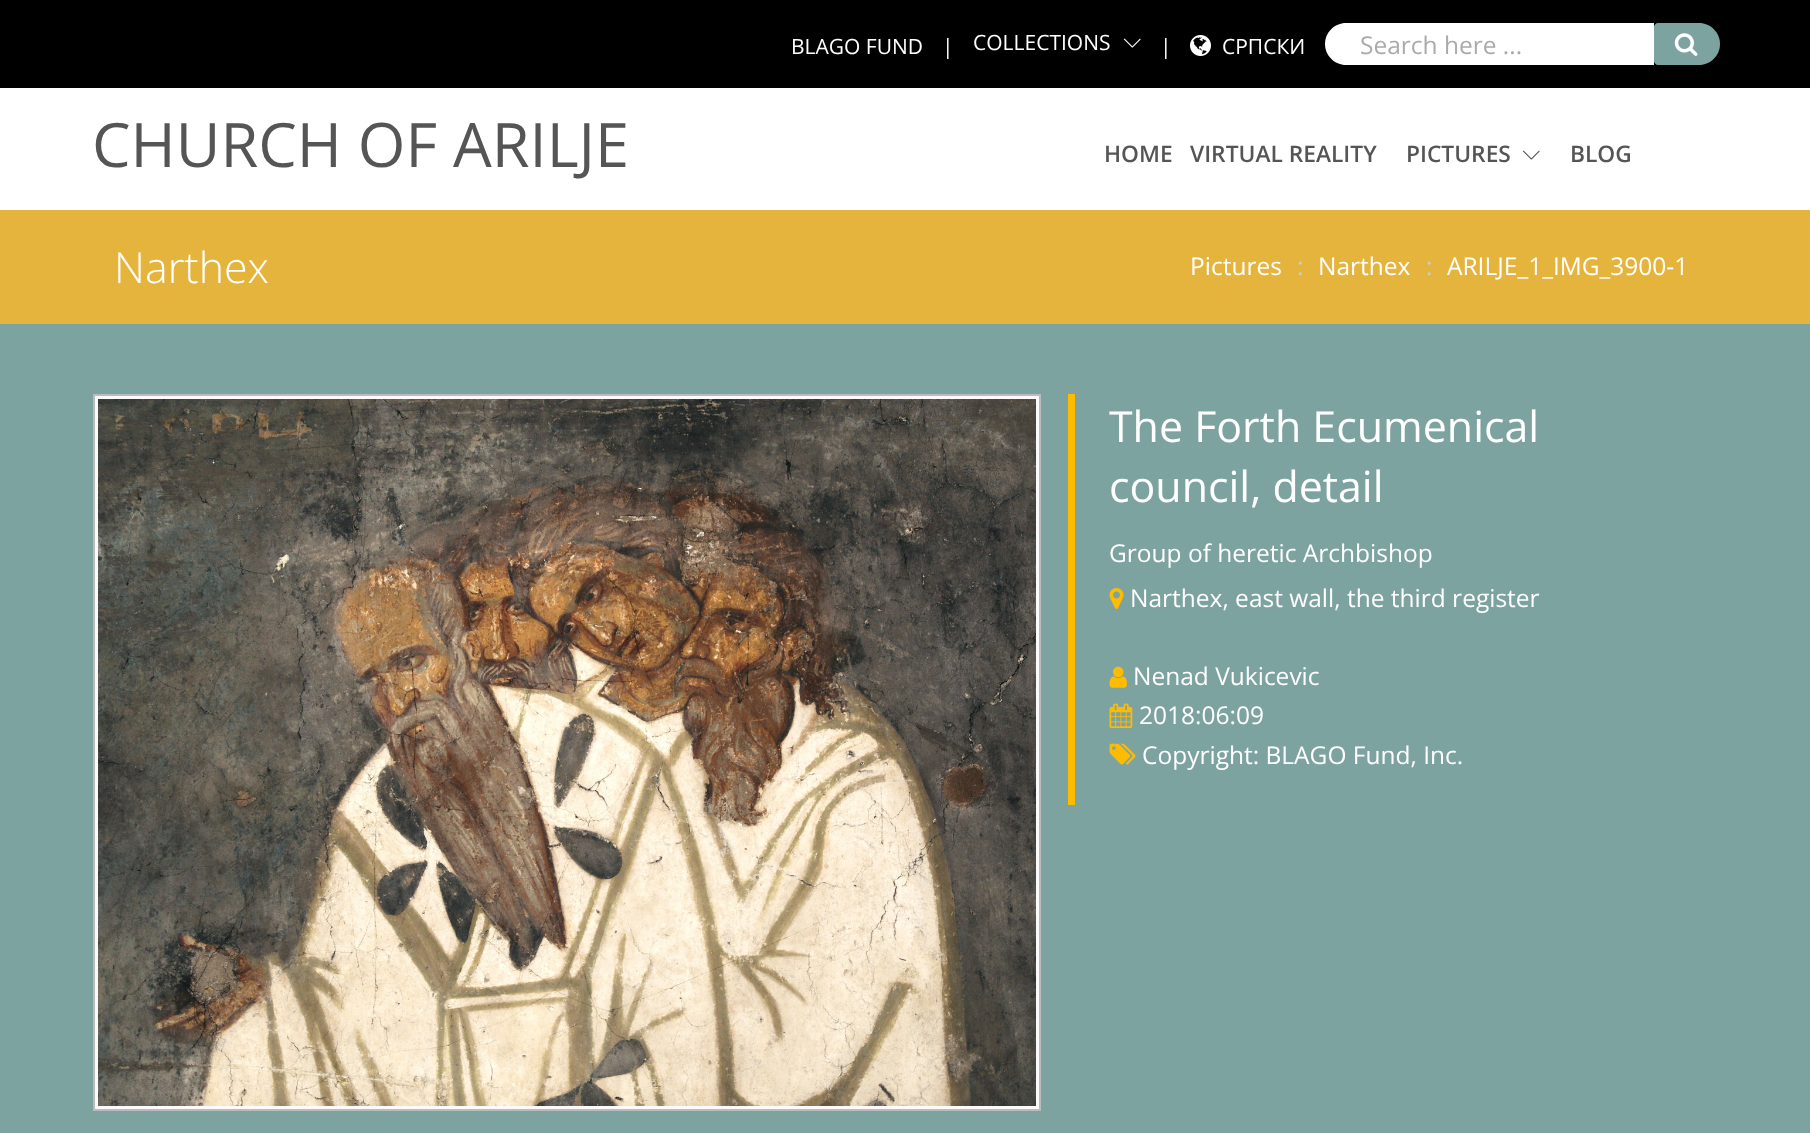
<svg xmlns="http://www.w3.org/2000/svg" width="1810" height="1133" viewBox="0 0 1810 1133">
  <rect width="100%" height="100%" fill="rgb(255,255,255)"/>
  <rect x="0" y="0" width="1810" height="88" fill="rgb(0,0,0)"/>
  <g font-family="Open Sans" font-size="21" fill="rgb(255,255,255)">
    <text x="791" y="54">BLAGO FUND</text>
    <text x="942" y="54">|</text>
    <text x="973" y="50">COLLECTIONS</text>
  </g>
  <image x="1123" y="38" width="18" height="10" href="pic1.png"/>
  <text x="1160" y="54" font-family="Open Sans" font-size="21" fill="rgb(255,255,255)">|</text>
  <image x="1190" y="35" width="21" height="21" href="pic2.png"/>
  <text x="1222" y="54" font-family="Open Sans" font-size="21" fill="rgb(255,255,255)">СРПСКИ</text>
  <path d="M1346 23H1654V65H1346C1334.5 65 1325 55.5 1325 44C1325 32.5 1334.5 23 1346 23Z" fill="rgb(255,255,255)"/>
  <text x="1360" y="54" font-family="Open Sans" font-size="24.5" fill="rgb(170,170,170)">Search here ...</text>
  <path d="M1658 23H1699C1710.5 23 1720 32.5 1720 44C1720 55.5 1710.5 65 1699 65H1658C1656 65 1654 63 1654 61V27C1654 25 1656 23 1658 23Z" fill="rgb(125,163,161)"/>
  <image x="1674" y="33" width="24" height="23" href="pic3.png"/>
  <text x="92" y="167" font-family="Open Sans" font-size="61.25" fill="rgb(85,85,85)">CHURCH OF ARILJE</text>
  <g font-family="Open Sans" font-size="22.75" font-weight="600" fill="rgb(85,85,85)">
    <text x="1104" y="162">HOME</text>
    <text x="1190" y="162">VIRTUAL REALITY</text>
    <text x="1406" y="162">PICTURES</text>
  </g>
  <image x="1522" y="150" width="18" height="10" href="pic4.png"/>
  <text x="1570" y="162" font-family="Open Sans" font-size="22.75" font-weight="600" fill="rgb(85,85,85)">BLOG</text>
  <rect x="0" y="210" width="1810" height="114" fill="rgb(229,180,61)"/>
  <text x="114" y="283" font-family="Open Sans" font-size="42.9" font-weight="300" fill="rgb(255,255,255)">Narthex</text>
  <text x="1190" y="275" font-family="Open Sans" font-size="24.5" fill="rgb(255,255,255)">Pictures</text>
  <text x="1297" y="275" font-family="Open Sans" font-size="24.5" fill="rgb(204,204,204)">:</text>
  <text x="1318" y="275" font-family="Open Sans" font-size="24.5" fill="rgb(255,255,255)">Narthex</text>
  <text x="1426" y="275" font-family="Open Sans" font-size="24.5" fill="rgb(204,204,204)">:</text>
  <text x="1447" y="275" font-family="Open Sans" font-size="24.5" fill="rgb(255,255,255)">ARILJE_1_IMG_3900-1</text>
  <rect x="0" y="324" width="1810" height="809" fill="rgb(125,163,161)"/>
  <rect x="94" y="395" width="946" height="715" fill="rgb(250,250,250)" stroke="rgb(187,187,187)" stroke-width="2"/>
  <image x="98" y="399" width="938" height="707" href="pic5.png"/>
  <rect x="1068" y="394" width="7" height="411" fill="rgb(255,187,0)"/>
  <g font-family="Open Sans" font-size="42.9" fill="rgb(255,255,255)">
    <text>
      <tspan x="1109" y="442">The Forth Ecumenical</tspan>
      <tspan x="1109" y="502">council, detail</tspan>
    </text>
  </g>
  <text x="1109" y="562" font-family="Open Sans" font-size="24.5" fill="rgb(255,255,255)">Group of heretic Archbishop</text>
  <image x="1109" y="588" width="15" height="21" href="pic6.png"/>
  <text x="1130" y="607" font-family="Open Sans" font-size="24.5" fill="rgb(255,255,255)">Narthex, east wall, the third register</text>
  <image x="1109" y="666" width="18" height="22" href="pic7.png"/>
  <text x="1133" y="685" font-family="Open Sans" font-size="24.5" fill="rgb(255,255,255)">Nenad Vukicevic</text>
  <image x="1109" y="703" width="24" height="25" href="pic8.png"/>
  <text x="1139" y="724" font-family="Open Sans" font-size="24.5" fill="rgb(255,255,255)">2018:06:09</text>
  <image x="1109" y="743" width="27" height="22" href="pic9.png"/>
  <text x="1142" y="764" font-family="Open Sans" font-size="24.5" fill="rgb(255,255,255)">Copyright: BLAGO Fund, Inc.</text>
</svg>
